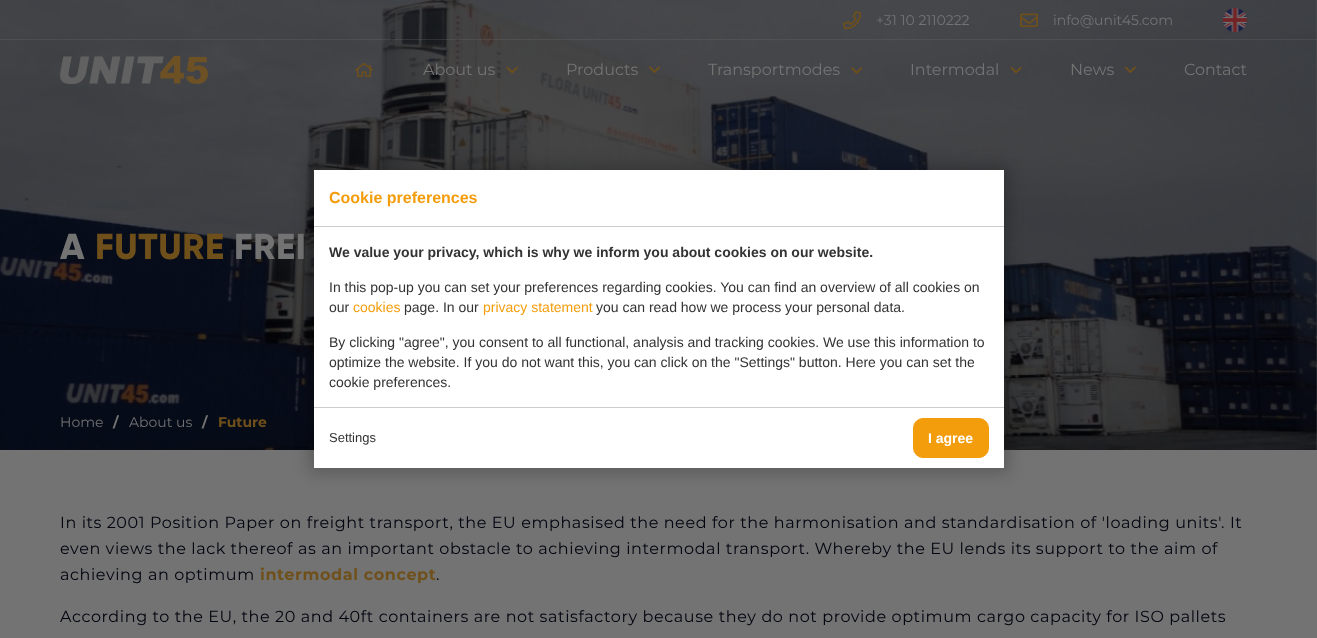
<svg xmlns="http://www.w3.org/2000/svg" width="1317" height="638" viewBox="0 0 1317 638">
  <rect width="100%" height="100%" fill="rgb(115,115,115)"/>
  <image x="0" y="0" width="1317" height="450" href="pic11.png"/>
  <rect x="0" y="39" width="1317" height="1" fill="rgba(115,115,115,0.25)"/>
  <image x="843" y="11" width="18" height="19" href="pic1.png"/>
  <text x="876" y="25" font-family="Montserrat" font-size="14" fill="rgb(115,115,115)">+31 10 2110222</text>
  <image x="1020" y="13" width="18" height="14" href="pic2.png"/>
  <text x="1053" y="25" font-family="Montserrat" font-size="14" fill="rgb(115,115,115)">info@unit45.com</text>
  <image x="1223" y="8" width="24" height="24" href="pic3.png"/>
  <image x="60" y="56" width="148" height="28" href="pic4.png"/>
  <image x="355" y="63" width="18" height="14" href="pic5.png"/>
  <text x="423" y="75" font-family="Montserrat" font-size="16" fill="rgb(115,115,115)">About us</text>
  <image x="506" y="66" width="12" height="8" href="pic6.png"/>
  <text x="566" y="75" font-family="Montserrat" font-size="16" fill="rgb(115,115,115)">Products</text>
  <image x="648" y="66" width="12" height="7" href="pic7.png"/>
  <text x="708" y="75" font-family="Montserrat" font-size="16" fill="rgb(115,115,115)">Transportmodes</text>
  <image x="851" y="67" width="12" height="7" href="pic8.png"/>
  <text x="910" y="75" font-family="Montserrat" font-size="16" fill="rgb(115,115,115)">Intermodal</text>
  <image x="1010" y="66" width="12" height="8" href="pic9.png"/>
  <text x="1070" y="75" font-family="Montserrat" font-size="16" fill="rgb(115,115,115)">News</text>
  <image x="1124" y="66" width="12" height="8" href="pic10.png"/>
  <text x="1184" y="75" font-family="Montserrat" font-size="16" fill="rgb(115,115,115)">Contact</text>
  <text x="60" y="259" font-family="Gilroy" font-size="36" font-weight="800" letter-spacing="0.6" fill="rgb(115,115,115)">A</text>
  <text x="95" y="259" font-family="Gilroy" font-size="36" font-weight="800" letter-spacing="0.6" fill="rgb(111,80,27)">FUTURE</text>
  <text x="234" y="259" font-family="Gilroy" font-size="36" font-weight="800" letter-spacing="0.6" fill="rgb(115,115,115)">FREI</text>
  <text x="60" y="427" font-family="Montserrat" font-size="14" fill="rgb(115,115,115)">Home</text>
  <text x="113" y="427" font-family="Montserrat" font-size="14" font-weight="bold" fill="rgb(115,115,115)">/</text>
  <text x="129" y="427" font-family="Montserrat" font-size="14" fill="rgb(115,115,115)">About us</text>
  <text x="202" y="427" font-family="Montserrat" font-size="14" font-weight="bold" fill="rgb(115,115,115)">/</text>
  <text x="218" y="427" font-family="Montserrat" font-size="14" font-weight="bold" fill="rgb(111,80,27)">Future</text>
  <g font-family="Montserrat" font-size="16" letter-spacing="0.6" fill="rgb(2,4,15)">
    <text>
      <tspan x="60" y="528">In its 2001 Position Paper on freight transport, the EU emphasised the need for the harmonisation and standardisation of 'loading units'. It</tspan>
      <tspan x="60" y="554">even views the lack thereof as an important obstacle to achieving intermodal transport. Whereby the EU lends its support to the aim of</tspan>
      <tspan x="60" y="580">achieving an optimum</tspan>
    </text>
  </g>
  <text x="260" y="580" font-family="Montserrat" font-size="16" font-weight="bold" letter-spacing="0.6" fill="rgb(111,80,27)">intermodal concept</text>
  <g font-family="Montserrat" font-size="16" letter-spacing="0.6" fill="rgb(2,4,15)">
    <text x="436" y="580">.</text>
    <text x="60" y="622">According to the EU, the 20 and 40ft containers are not satisfactory because they do not provide optimum cargo capacity for ISO pallets</text>
  </g>
  <rect x="309" y="165" width="700" height="308" fill="rgba(0,0,0,0.2)" filter="blur(7.5px)"/>
  <rect x="314" y="170" width="690" height="298" fill="rgb(255,255,255)"/>
  <rect x="314" y="226" width="690" height="1" fill="rgb(204,204,204)"/>
  <text x="329" y="203" font-family="Liberation Sans" font-size="16" font-weight="bold" fill="rgb(244,157,12)">Cookie preferences</text>
  <text x="329" y="257" font-family="Liberation Sans" font-size="14" font-weight="bold" fill="rgb(51,51,51)">We value your privacy, which is why we inform you about cookies on our website.</text>
  <g font-family="Liberation Sans" font-size="14" fill="rgb(51,51,51)">
    <text>
      <tspan x="329" y="292">In this pop-up you can set your preferences regarding cookies. You can find an overview of all cookies on</tspan>
      <tspan x="329" y="312">our</tspan>
    </text>
  </g>
  <text x="353" y="312" font-family="Liberation Sans" font-size="14" fill="rgb(244,157,12)">cookies</text>
  <text x="404" y="312" font-family="Liberation Sans" font-size="14" fill="rgb(51,51,51)">page. In our</text>
  <text x="483" y="312" font-family="Liberation Sans" font-size="14" fill="rgb(244,157,12)">privacy statement</text>
  <g font-family="Liberation Sans" font-size="14" fill="rgb(51,51,51)">
    <text x="596" y="312">you can read how we process your personal data.</text>
    <text>
      <tspan x="329" y="347">By clicking "agree", you consent to all functional, analysis and tracking cookies. We use this information to</tspan>
      <tspan x="329" y="367">optimize the website. If you do not want this, you can click on the "Settings" button. Here you can set the</tspan>
      <tspan x="329" y="387">cookie preferences.</tspan>
    </text>
  </g>
  <rect x="314" y="407" width="690" height="1" fill="rgb(204,204,204)"/>
  <text x="329" y="442" font-family="Liberation Sans" font-size="13" fill="rgb(51,51,51)">Settings</text>
  <rect x="913.5" y="418.5" width="75" height="39" rx="9.5" fill="rgb(244,157,12)" stroke="rgb(244,157,12)"/>
  <text x="928" y="443" font-family="Liberation Sans" font-size="14" font-weight="bold" fill="rgb(255,255,255)">I agree</text>
</svg>
